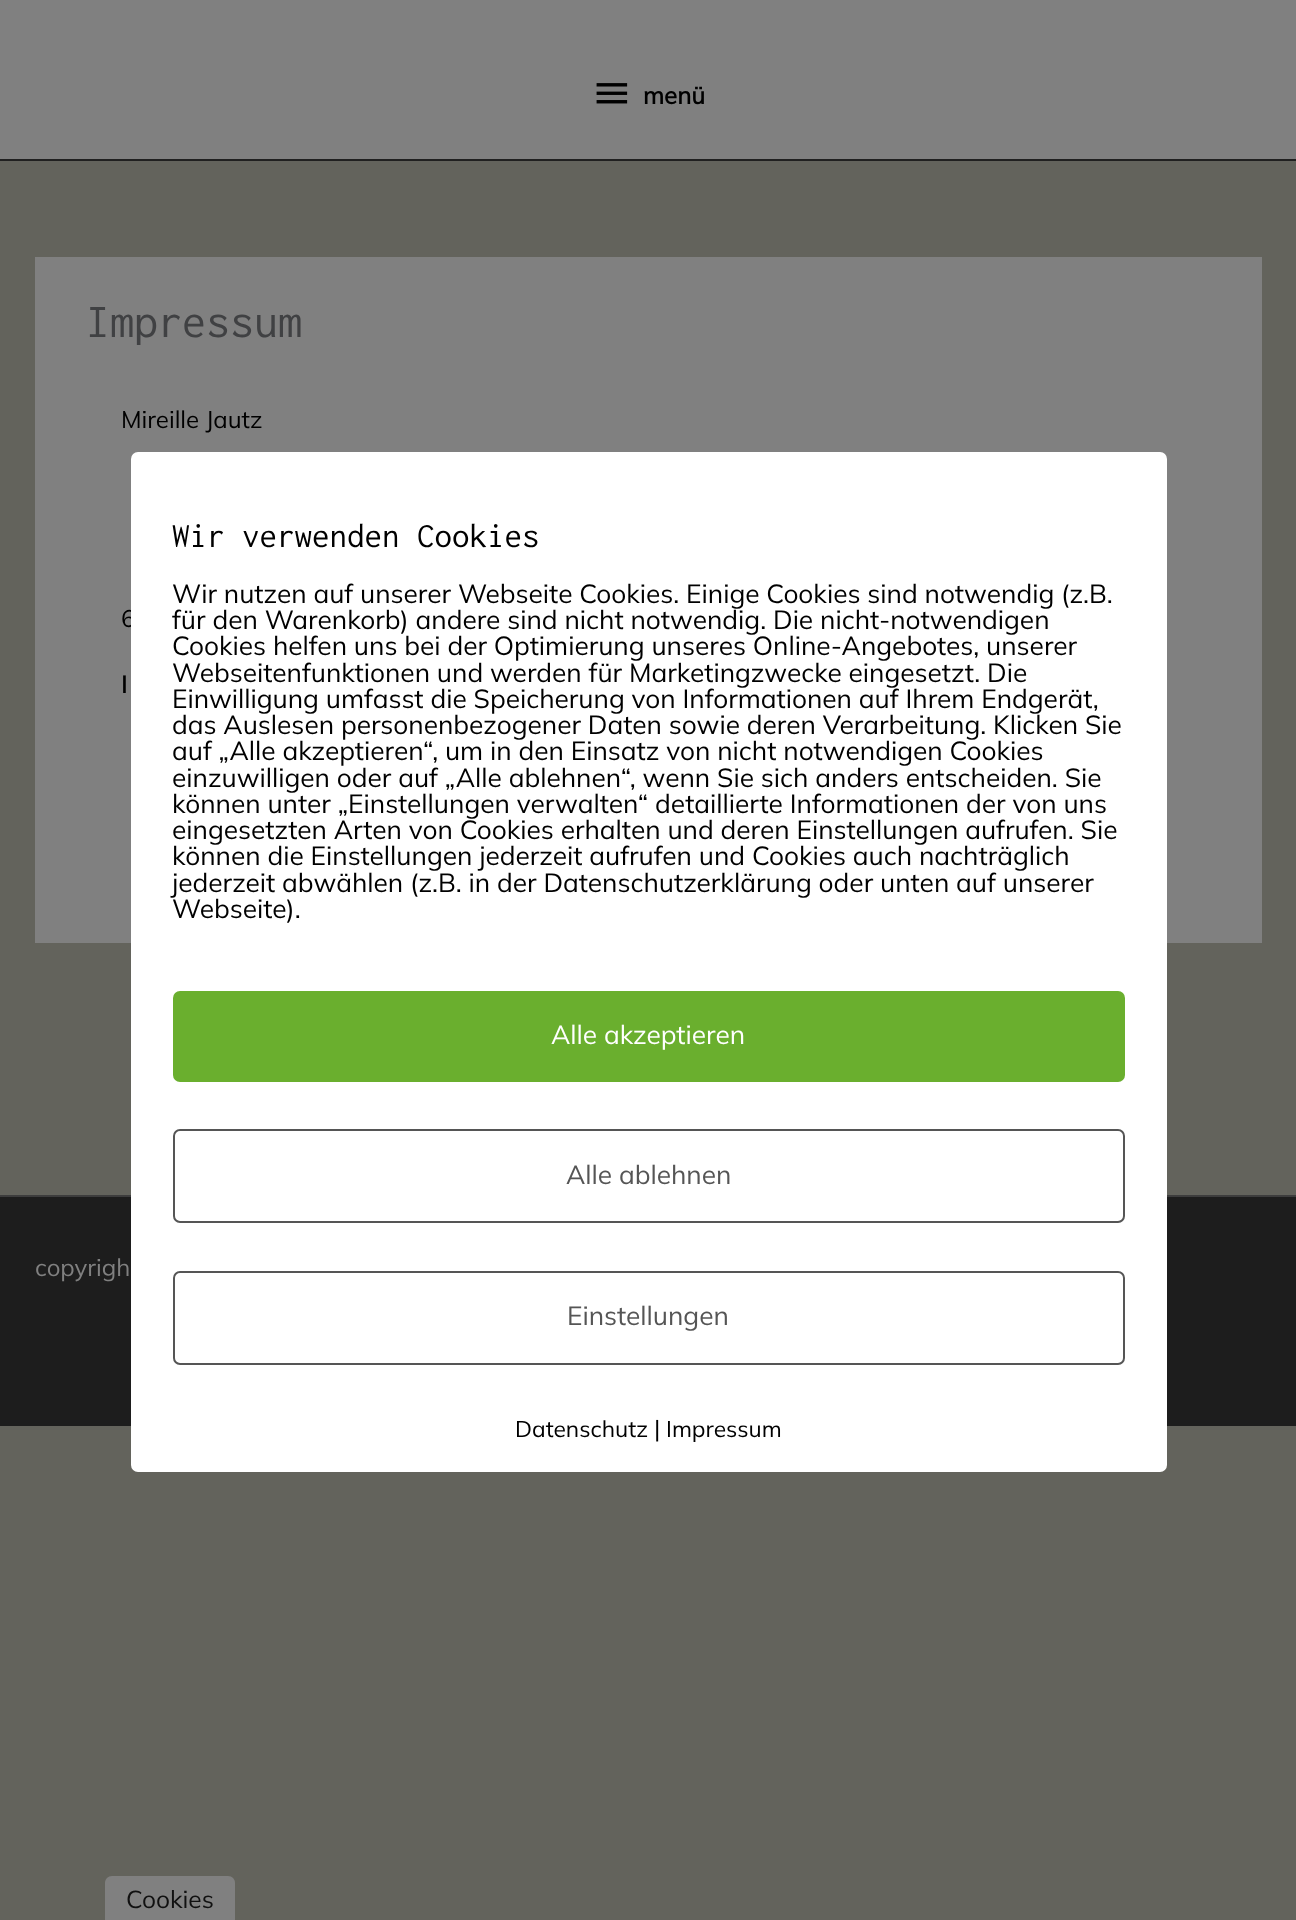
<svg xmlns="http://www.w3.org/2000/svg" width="1296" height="1920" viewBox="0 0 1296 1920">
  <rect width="100%" height="100%" fill="rgb(99,99,92)"/>
  <rect x="0" y="0" width="1296" height="159" fill="rgb(128,128,128)"/>
  <rect x="0" y="159" width="1296" height="2" fill="rgb(32,32,32)"/>
  <image x="596" y="83" width="32" height="21" href="pic1.png"/>
  <text x="643" y="104" font-family="Mulish" font-size="24" font-weight="bold" fill="rgb(0,0,0)">menü</text>
  <rect x="35" y="257" width="1227" height="686" fill="rgb(128,128,128)"/>
  <text x="86" y="337" font-family="Inconsolata" font-size="48" fill="rgb(64,65,67)">Impressum</text>
  <g font-family="Mulish" font-size="24" fill="rgb(0,0,0)">
    <text x="121" y="428">Mireille Jautz</text>
    <text x="121" y="627">6</text>
  </g>
  <text x="121" y="693" font-family="Mulish" font-size="24" font-weight="bold" fill="rgb(0,0,0)">I</text>
  <rect x="0" y="1195" width="1296" height="2" fill="rgb(61,61,61)"/>
  <rect x="0" y="1197" width="1296" height="229" fill="rgb(29,29,29)"/>
  <text x="35" y="1276" font-family="Mulish" font-size="24" fill="rgb(128,128,128)">copyrigh</text>
  <rect x="131" y="452" width="1036" height="1020" rx="7" fill="rgb(255,255,255)"/>
  <text x="172" y="547" font-family="Inconsolata" font-size="35" fill="rgb(0,0,0)">Wir verwenden Cookies</text>
  <g font-family="Mulish" font-size="26.25" fill="rgb(0,0,0)">
    <text>
      <tspan x="172" y="603">Wir nutzen auf unserer Webseite Cookies. Einige Cookies sind notwendig (z.B.</tspan>
      <tspan x="172" y="629">für den Warenkorb) andere sind nicht notwendig. Die nicht-notwendigen</tspan>
      <tspan x="172" y="655">Cookies helfen uns bei der Optimierung unseres Online-Angebotes, unserer</tspan>
      <tspan x="172" y="682">Webseitenfunktionen und werden für Marketingzwecke eingesetzt. Die</tspan>
      <tspan x="172" y="708">Einwilligung umfasst die Speicherung von Informationen auf Ihrem Endgerät,</tspan>
      <tspan x="172" y="734">das Auslesen personenbezogener Daten sowie deren Verarbeitung. Klicken Sie</tspan>
      <tspan x="172" y="760">auf „Alle akzeptieren“, um in den Einsatz von nicht notwendigen Cookies</tspan>
      <tspan x="172" y="787">einzuwilligen oder auf „Alle ablehnen“, wenn Sie sich anders entscheiden. Sie</tspan>
      <tspan x="172" y="813">können unter „Einstellungen verwalten“ detaillierte Informationen der von uns</tspan>
      <tspan x="172" y="839">eingesetzten Arten von Cookies erhalten und deren Einstellungen aufrufen. Sie</tspan>
      <tspan x="172" y="865">können die Einstellungen jederzeit aufrufen und Cookies auch nachträglich</tspan>
      <tspan x="172" y="892">jederzeit abwählen (z.B. in der Datenschutzerklärung oder unten auf unserer</tspan>
      <tspan x="172" y="918">Webseite).</tspan>
    </text>
  </g>
  <rect x="173" y="991" width="952" height="91" rx="7" fill="rgb(106,175,46)"/>
  <text x="551" y="1044" font-family="Mulish" font-size="26.25" fill="rgb(255,255,255)">Alle akzeptieren</text>
  <rect x="174" y="1130" width="950" height="92" rx="6" fill="none" stroke="rgb(85,85,85)" stroke-width="2"/>
  <text x="566" y="1184" font-family="Mulish" font-size="26.25" fill="rgb(85,85,85)">Alle ablehnen</text>
  <rect x="174" y="1272" width="950" height="92" rx="6" fill="none" stroke="rgb(85,85,85)" stroke-width="2"/>
  <text x="567" y="1325" font-family="Mulish" font-size="26.25" fill="rgb(85,85,85)">Einstellungen</text>
  <text x="515" y="1437" font-family="Mulish" font-size="22.75" fill="rgb(0,0,0)">Datenschutz</text>
  <text x="654" y="1437" font-family="Mulish" font-size="24" fill="rgb(0,0,0)">|</text>
  <text x="666" y="1437" font-family="Mulish" font-size="22.75" fill="rgb(0,0,0)">Impressum</text>
  <path d="M112 1876H228C232 1876 235 1879 235 1883V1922H105V1883C105 1879 108 1876 112 1876Z" fill="rgb(128,128,128)"/>
  <text x="126" y="1908" font-family="Mulish" font-size="24.5" fill="rgb(17,17,17)">Cookies</text>
</svg>
